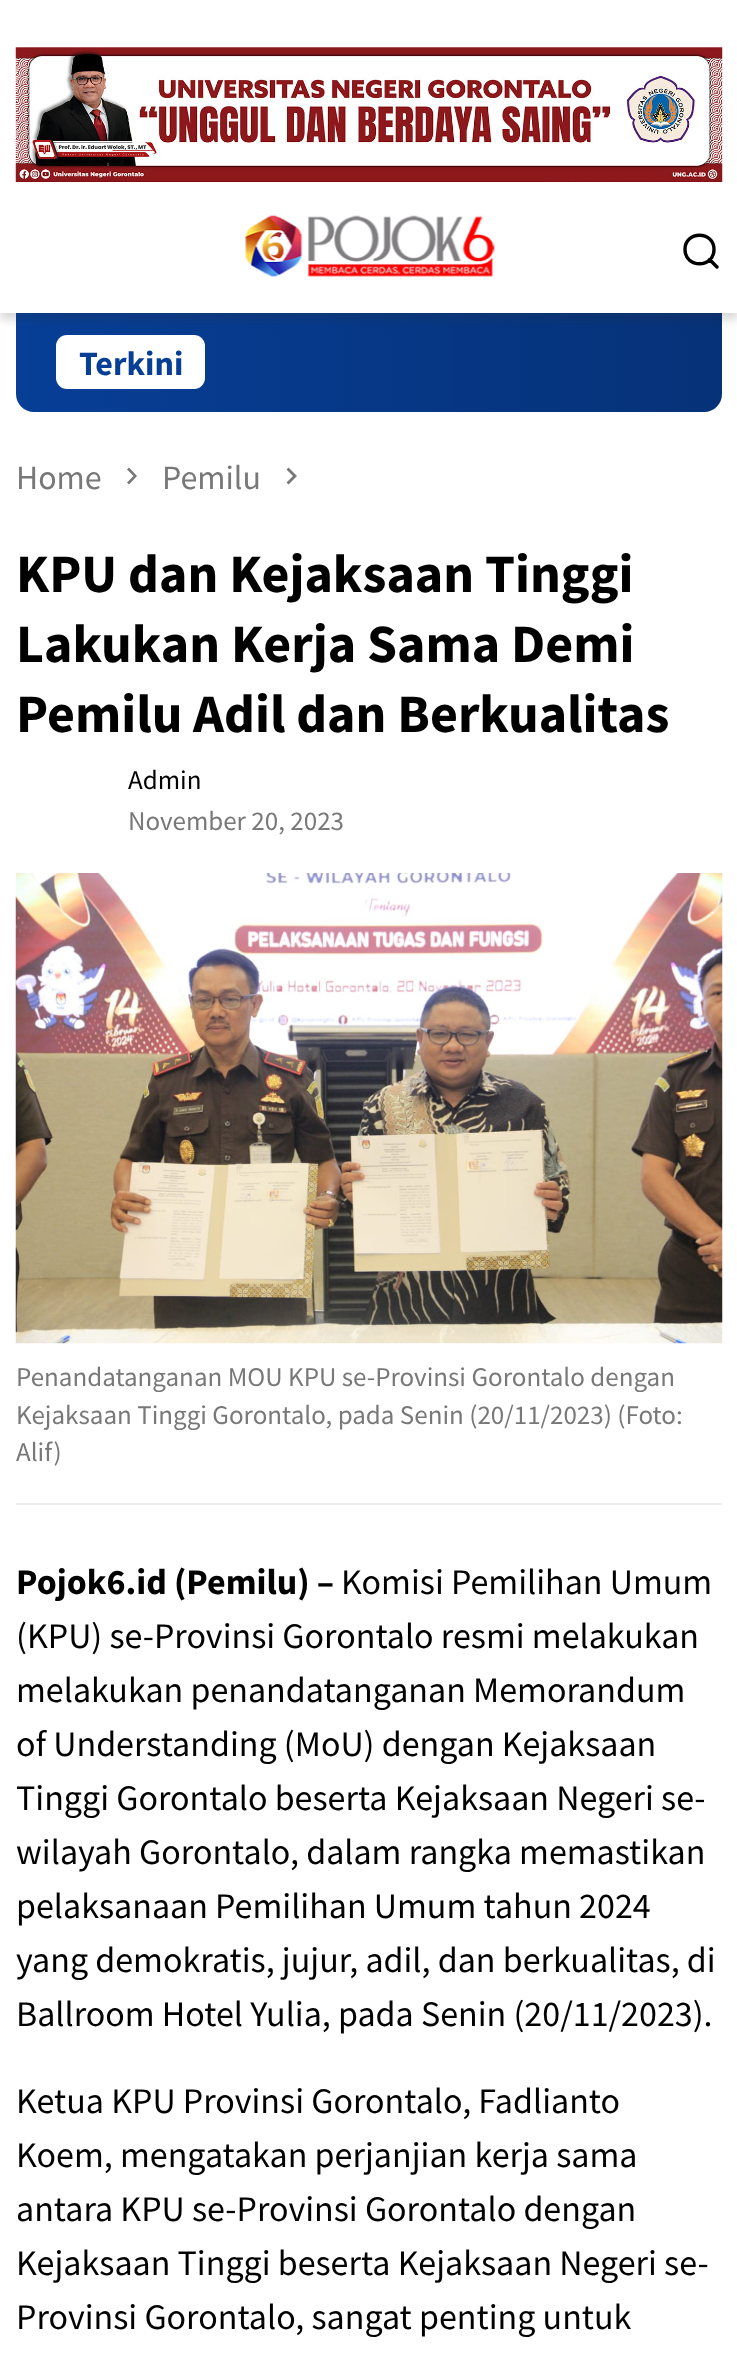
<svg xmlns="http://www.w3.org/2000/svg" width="737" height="2363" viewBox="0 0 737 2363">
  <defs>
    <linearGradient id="g1" gradientUnits="userSpaceOnUse" x1="16" y1="362" x2="722" y2="362"><stop offset="0" stop-color="rgb(0,0,0)" stop-opacity="0"/><stop offset="1" stop-color="rgb(0,0,0)" stop-opacity="0.2"/></linearGradient>
  </defs>
  <rect width="100%" height="100%" fill="rgb(255,255,255)"/>
  <image x="15" y="47" width="708" height="135" href="pic1.png"/>
  <path d="M16 313H722V394C722 404 714 412 704 412H34C24 412 16 404 16 394Z" fill="rgb(7,62,150)"/>
  <path d="M16 313H722V394C722 404 714 412 704 412H34C24 412 16 404 16 394Z" fill="url(#g1)"/>
  <rect x="0" y="189" width="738" height="131" fill="rgba(52,52,52,0.18)" filter="blur(4.5px)"/>
  <rect x="0" y="182" width="737" height="131" fill="rgb(255,255,255)"/>
  <image x="245" y="215" width="250" height="62" href="pic2.png"/>
  <path d="M717 267L709.5 259.5M714 249.5C714 268.5 685 268.5 685 249.5C685 230.5 714 230.5 714 249.5Z" fill="none" stroke="rgb(0,0,0)" stroke-width="3.4" stroke-linecap="round"/>
  <rect x="56" y="335" width="149" height="54" rx="11" fill="rgb(255,255,255)"/>
  <text x="79" y="375" font-family="Source Sans Pro" font-size="34" font-weight="bold" fill="rgb(7,62,150)">Terkini</text>
  <text x="16" y="489" font-family="Source Sans Pro" font-size="34" fill="rgb(120,120,120)">Home</text>
  <path d="M127 482.5L133.5 476L127 469.5L129 467.5L137 476L129 484.5Z" fill="rgb(120,120,120)"/>
  <text x="162" y="489" font-family="Source Sans Pro" font-size="34" fill="rgb(120,120,120)">Pemilu</text>
  <path d="M286.5 482.5L293 476L286.5 469.5L288.5 467.5L297 476L288.5 484.5Z" fill="rgb(120,120,120)"/>
  <g font-family="Source Sans Pro" font-size="54" font-weight="bold" fill="rgb(0,0,0)">
    <text>
      <tspan x="16" y="592">KPU dan Kejaksaan Tinggi</tspan>
      <tspan x="16" y="662">Lakukan Kerja Sama Demi</tspan>
      <tspan x="16" y="732">Pemilu Adil dan Berkualitas</tspan>
    </text>
  </g>
  <text x="128" y="789" font-family="Source Sans Pro" font-size="27" fill="rgb(0,0,0)">Admin</text>
  <text x="128" y="830" font-family="Source Sans Pro" font-size="27" fill="rgb(120,120,120)">November 20, 2023</text>
  <image x="15" y="873" width="708" height="471" href="pic3.png"/>
  <rect x="16" y="1503" width="706" height="2" fill="rgb(238,238,238)"/>
  <g font-family="Source Sans Pro" font-size="27" fill="rgb(120,120,120)">
    <text>
      <tspan x="16" y="1386">Penandatanganan MOU KPU se-Provinsi Gorontalo dengan</tspan>
      <tspan x="16" y="1424">Kejaksaan Tinggi Gorontalo, pada Senin (20/11/2023) (Foto:</tspan>
      <tspan x="16" y="1461">Alif)</tspan>
    </text>
  </g>
  <text x="16" y="1594" font-family="Source Sans Pro" font-size="36" font-weight="bold" fill="rgb(0,0,0)">Pojok6.id (Pemilu) –</text>
  <g font-family="Source Sans Pro" font-size="36" fill="rgb(0,0,0)">
    <text x="341" y="1594">Komisi Pemilihan Umum</text>
    <text>
      <tspan x="16" y="1648">(KPU) se-Provinsi Gorontalo resmi melakukan</tspan>
      <tspan x="16" y="1702">melakukan penandatanganan Memorandum</tspan>
      <tspan x="16" y="1756">of Understanding (MoU) dengan Kejaksaan</tspan>
      <tspan x="16" y="1810">Tinggi Gorontalo beserta Kejaksaan Negeri se-</tspan>
      <tspan x="16" y="1864">wilayah Gorontalo, dalam rangka memastikan</tspan>
      <tspan x="16" y="1918">pelaksanaan Pemilihan Umum tahun 2024</tspan>
      <tspan x="16" y="1972">yang demokratis, jujur, adil, dan berkualitas, di</tspan>
      <tspan x="16" y="2026">Ballroom Hotel Yulia, pada Senin (20/11/2023).</tspan>
    </text>
    <text>
      <tspan x="16" y="2113">Ketua KPU Provinsi Gorontalo, Fadlianto</tspan>
      <tspan x="16" y="2167">Koem, mengatakan perjanjian kerja sama</tspan>
      <tspan x="16" y="2221">antara KPU se-Provinsi Gorontalo dengan</tspan>
      <tspan x="16" y="2275">Kejaksaan Tinggi beserta Kejaksaan Negeri se-</tspan>
      <tspan x="16" y="2329">Provinsi Gorontalo, sangat penting untuk</tspan>
    </text>
  </g>
</svg>
